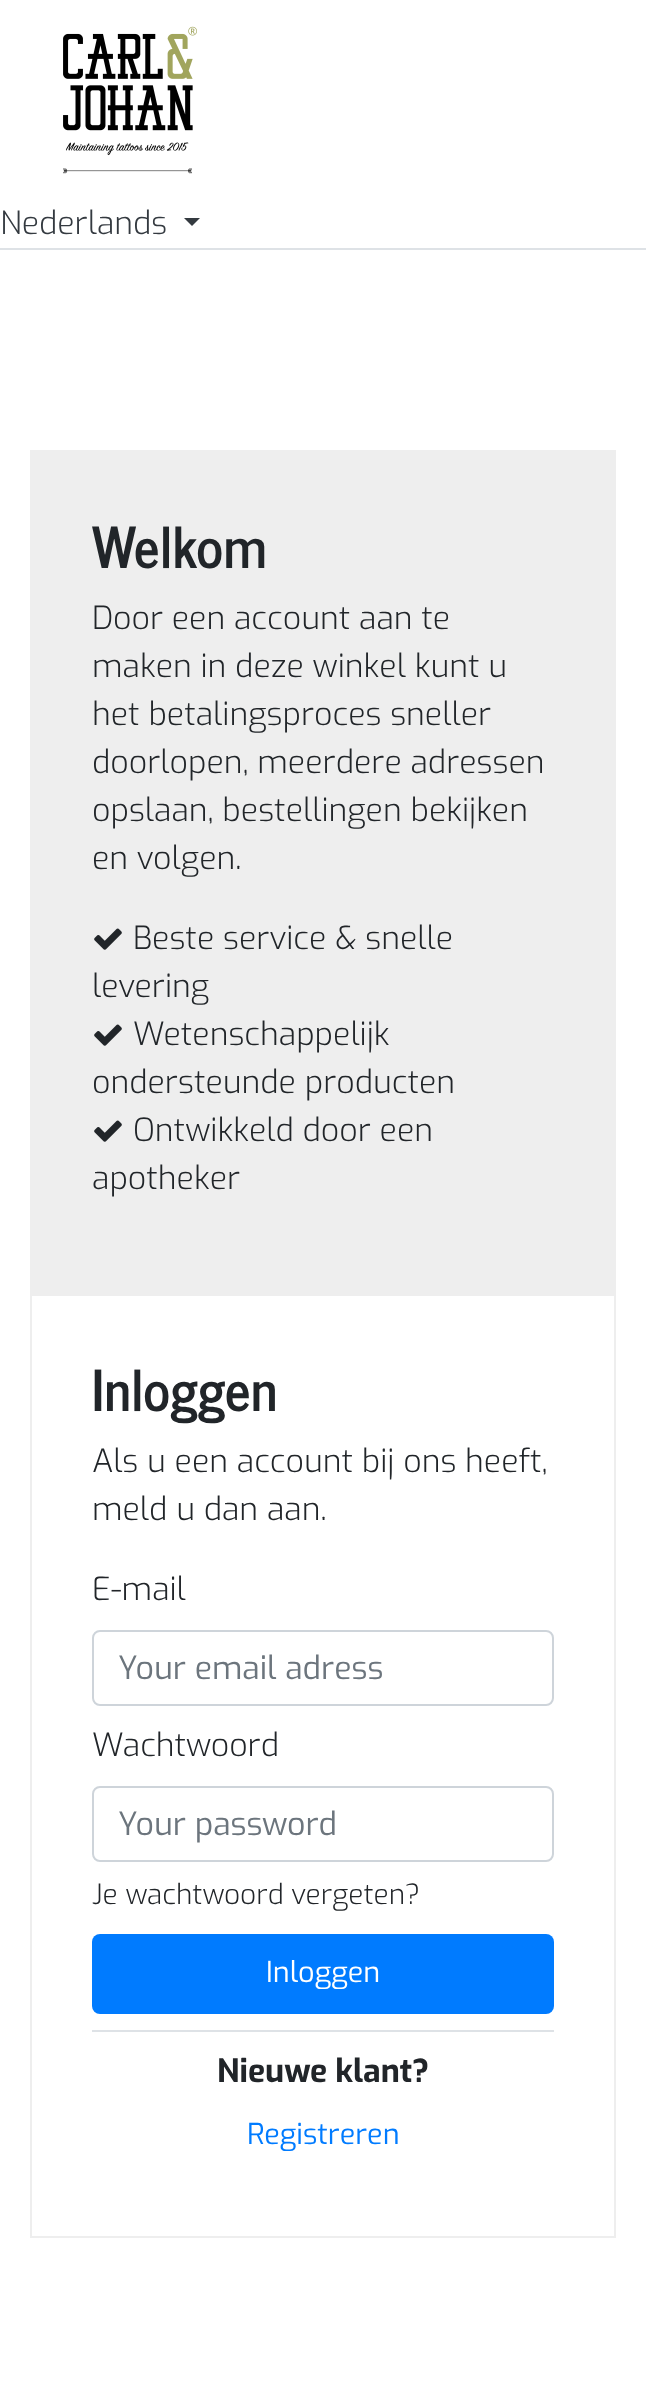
<svg xmlns="http://www.w3.org/2000/svg" width="646" height="2403" viewBox="0 0 646 2403">
  <rect width="100%" height="100%" fill="rgb(255,255,255)"/>
  <rect x="0" y="248" width="646" height="2" fill="rgb(222,226,230)"/>
  <image x="63" y="26" width="134" height="148" href="pic1.png"/>
  <text x="0" y="234" font-family="Exo" font-size="32" font-weight="300" fill="rgb(52,58,64)">Nederlands</text>
  <path d="M184 218H200L192 226Z" fill="rgb(52,58,64)"/>
  <rect x="31" y="451" width="584" height="1786" fill="none" stroke="rgb(238,238,238)" stroke-width="2"/>
  <rect x="32" y="452" width="582" height="844" fill="rgb(238,238,238)"/>
  <text x="92" y="568" font-family="News Cycle" font-size="56" font-weight="bold" fill="rgb(33,37,41)">Welkom</text>
  <g font-family="Exo" font-size="32" font-weight="300" fill="rgb(33,37,41)">
    <text>
      <tspan x="92" y="629">Door een account aan te</tspan>
      <tspan x="92" y="677">maken in deze winkel kunt u</tspan>
      <tspan x="92" y="725">het betalingsproces sneller</tspan>
      <tspan x="92" y="773">doorlopen, meerdere adressen</tspan>
      <tspan x="92" y="821">opslaan, bestellingen bekijken</tspan>
      <tspan x="92" y="869">en volgen.</tspan>
    </text>
  </g>
  <image x="94" y="928" width="28" height="22" href="pic2.png"/>
  <g font-family="Exo" font-size="32" font-weight="300" fill="rgb(33,37,41)">
    <text x="133" y="949">Beste service &amp; snelle</text>
    <text x="92" y="997">levering</text>
  </g>
  <image x="94" y="1024" width="28" height="22" href="pic2.png"/>
  <g font-family="Exo" font-size="32" font-weight="300" fill="rgb(33,37,41)">
    <text x="133" y="1045">Wetenschappelijk</text>
    <text x="92" y="1093">ondersteunde producten</text>
  </g>
  <image x="94" y="1120" width="28" height="22" href="pic2.png"/>
  <g font-family="Exo" font-size="32" font-weight="300" fill="rgb(33,37,41)">
    <text x="133" y="1141">Ontwikkeld door een</text>
    <text x="92" y="1189">apotheker</text>
  </g>
  <text x="92" y="1411" font-family="News Cycle" font-size="56" font-weight="bold" fill="rgb(33,37,41)">Inloggen</text>
  <g font-family="Exo" font-size="32" font-weight="300" fill="rgb(33,37,41)">
    <text>
      <tspan x="92" y="1472">Als u een account bij ons heeft,</tspan>
      <tspan x="92" y="1520">meld u dan aan.</tspan>
    </text>
  </g>
  <rect x="92" y="2030" width="462" height="2" fill="rgb(222,226,230)"/>
  <text x="92" y="1600" font-family="Exo" font-size="32" font-weight="300" fill="rgb(33,37,41)">E-mail</text>
  <rect x="93" y="1631" width="460" height="74" rx="7" fill="none" stroke="rgb(206,212,218)" stroke-width="2"/>
  <text x="118" y="1679" font-family="Exo" font-size="32" fill="rgb(108,117,125)">Your email adress</text>
  <text x="92" y="1756" font-family="Exo" font-size="32" font-weight="300" fill="rgb(33,37,41)">Wachtwoord</text>
  <rect x="93" y="1787" width="460" height="74" rx="7" fill="none" stroke="rgb(206,212,218)" stroke-width="2"/>
  <text x="118" y="1835" font-family="Exo" font-size="32" fill="rgb(108,117,125)">Your password</text>
  <text x="92" y="1904" font-family="Exo" font-size="28" font-weight="300" fill="rgb(33,37,41)">Je wachtwoord vergeten?</text>
  <rect x="92" y="1934" width="462" height="80" rx="8" fill="rgb(0,123,255)"/>
  <text x="266" y="1982" font-family="Exo" font-size="28.75" fill="rgb(255,255,255)">Inloggen</text>
  <text x="217" y="2082" font-family="Exo" font-size="32" font-weight="bold" fill="rgb(33,37,41)">Nieuwe klant?</text>
  <text x="247" y="2144" font-family="Exo" font-size="28.75" fill="rgb(0,123,255)">Registreren</text>
</svg>
